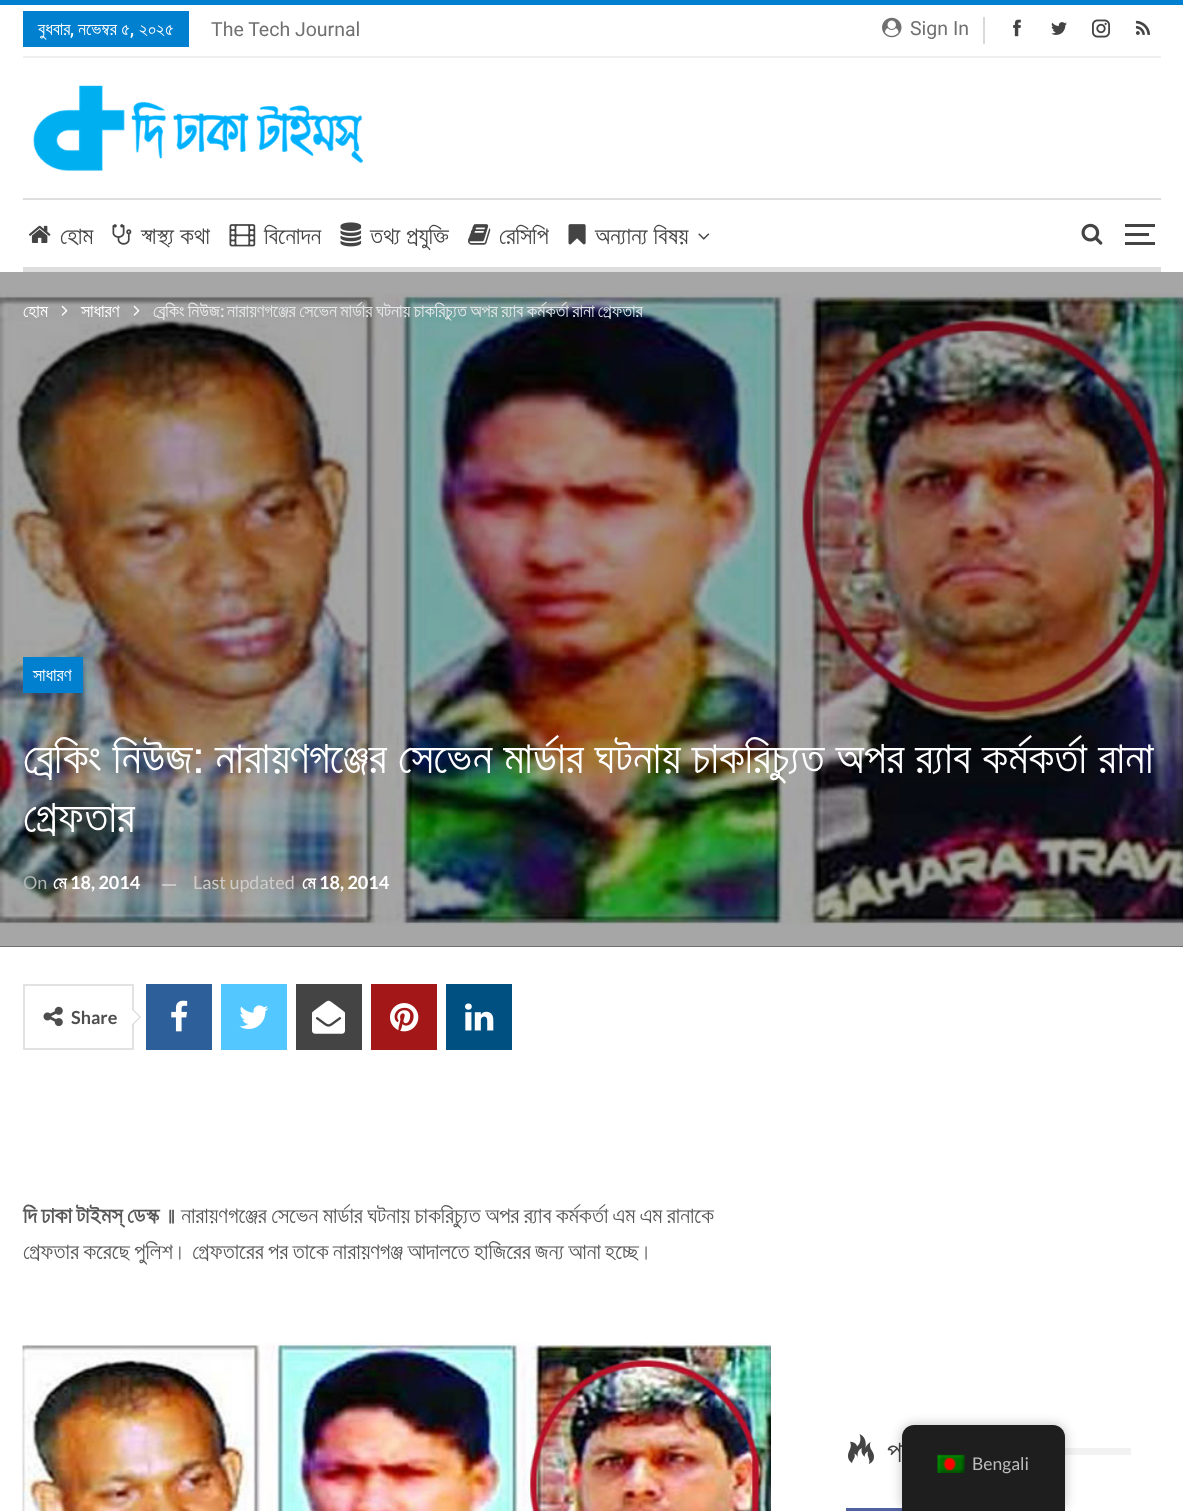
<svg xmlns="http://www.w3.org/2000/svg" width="1183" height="1511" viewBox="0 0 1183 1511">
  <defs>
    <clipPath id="clip1"><rect x="23" y="272" width="1138" height="675"/></clipPath>
  </defs>
  <rect width="100%" height="100%" fill="rgb(255,255,255)"/>
  <rect x="0" y="0" width="1183" height="5" fill="rgb(0,128,206)"/>
  <rect x="23" y="56" width="1138" height="2" fill="rgb(239,239,239)"/>
  <rect x="23" y="11" width="166" height="36" fill="rgb(0,128,206)"/>
  <text x="38" y="35" font-family="FreeSans" font-size="18" fill="rgb(255,255,255)">বুধবার</text>
  <text x="70" y="35" font-family="Roboto" font-size="18" font-weight="500" fill="rgb(255,255,255)">,</text>
  <text x="78" y="35" font-family="FreeSans" font-size="18" fill="rgb(255,255,255)">নভেম্বর ৫</text>
  <text x="130" y="35" font-family="Roboto" font-size="18" font-weight="500" fill="rgb(255,255,255)">,</text>
  <text x="139" y="35" font-family="FreeSans" font-size="18" fill="rgb(255,255,255)">২০২৫</text>
  <text x="211" y="36" font-family="Roboto" font-size="19.5" fill="rgb(112,112,112)">The Tech Journal</text>
  <image x="882" y="17" width="20" height="21" href="pic1.png"/>
  <text x="910" y="35" font-family="Roboto" font-size="19.5" fill="rgb(112,112,112)">Sign In</text>
  <rect x="983" y="17" width="2" height="27" fill="rgb(217,217,217)"/>
  <image x="1013" y="19" width="8" height="18" href="pic2.png"/>
  <image x="1051" y="22" width="16" height="13" href="pic3.png"/>
  <image x="1092" y="19" width="18" height="19" href="pic4.png"/>
  <image x="1135" y="20" width="15" height="15" href="pic5.png"/>
  <image x="33" y="85" width="330" height="86" href="pic6.png"/>
  <rect x="23" y="198" width="1138" height="2" fill="rgb(222,222,222)"/>
  <rect x="23" y="267" width="1138" height="5" fill="rgb(222,222,222)"/>
  <image x="28" y="225" width="23" height="18" href="pic7.png"/>
  <text x="60" y="244" font-family="FreeSans" font-size="24" fill="rgb(68,68,68)">হোম</text>
  <image x="112" y="224" width="20" height="21" href="pic8.png"/>
  <text x="141" y="244" font-family="FreeSans" font-size="24" fill="rgb(68,68,68)">স্বাস্থ্য কথা</text>
  <image x="229" y="224" width="27" height="23" href="pic9.png"/>
  <text x="264" y="244" font-family="FreeSans" font-size="24" fill="rgb(68,68,68)">বিনোদন</text>
  <image x="340" y="222" width="22" height="25" href="pic10.png"/>
  <text x="370" y="244" font-family="FreeSans" font-size="24" fill="rgb(68,68,68)">তথ্য প্রযুক্তি</text>
  <image x="468" y="224" width="23" height="21" href="pic11.png"/>
  <text x="499" y="244" font-family="FreeSans" font-size="24" fill="rgb(68,68,68)">রেসিপি</text>
  <image x="568" y="224" width="18" height="21" href="pic12.png"/>
  <text x="595" y="244" font-family="FreeSans" font-size="24" fill="rgb(68,68,68)">অন্যান্য বিষয়</text>
  <image x="698" y="233" width="12" height="7" href="pic13.png"/>
  <image x="1081" y="223" width="22" height="22" href="pic14.png"/>
  <rect x="1125" y="233" width="24" height="3" fill="rgb(68,68,68)"/>
  <rect x="1125" y="224" width="30" height="3" fill="rgb(68,68,68)"/>
  <rect x="1125" y="242" width="30" height="3" fill="rgb(68,68,68)"/>
  <rect x="0" y="946" width="1183" height="1" fill="rgb(56,56,56)"/>
  <image x="0" y="272" width="1183" height="675" href="pic15.png"/>
  <text x="23" y="317" font-family="FreeSans" font-size="18" fill="rgb(255,255,255)">হোম</text>
  <image x="61" y="305" width="7" height="11" href="pic16.png"/>
  <text x="81" y="317" font-family="FreeSans" font-size="18" fill="rgb(255,255,255)">সাধারণ</text>
  <image x="133" y="305" width="7" height="11" href="pic17.png"/>
  <text x="153" y="317" word-spacing="-1" font-family="FreeSans" font-size="18" fill="rgb(236,236,236)">ব্রেকিং নিউজ</text>
  <text x="220" y="317" font-family="Lato" font-size="18" fill="rgb(236,236,236)">:</text>
  <text x="227" y="317" word-spacing="-1" font-family="FreeSans" font-size="18" fill="rgb(229,232,233)">নারায়ণগঞ্জের সেভেন মার্ডার ঘটনায় চাকরিচ্যুত অপর র‌্যাব কর্মকর্তা রানা গ্রেফতার</text>
  <rect x="23" y="657" width="60" height="36" fill="rgb(0,128,206)"/>
  <text x="33" y="681" font-family="FreeSans" font-size="18" fill="rgb(255,255,255)">সাধারণ</text>
  <g clip-path="url(#clip1)">
    <g font-family="FreeSans" font-size="45" fill="rgb(255,255,255)">
      <text>
        <tspan x="23" y="773">ব্রেকিং নিউজ: নারায়ণগঞ্জের সেভেন মার্ডার ঘটনায় চাকরিচ্যুত অপর র‌্যাব কর্মকর্তা রানা</tspan>
        <tspan x="23" y="832">গ্রেফতার</tspan>
      </text>
    </g>
  </g>
  <text x="23" y="889" font-family="Lato" font-size="18" fill="rgb(175,182,181)">On</text>
  <text x="53" y="889" font-family="FreeSans" font-size="18" font-weight="bold" fill="rgb(255,255,255)">মে</text>
  <text x="70" y="889" font-family="Lato" font-size="18" font-weight="bold" fill="rgb(255,255,255)">18, 2014</text>
  <rect x="162" y="884" width="14" height="2" fill="rgba(255,255,255,0.43)"/>
  <text x="193" y="889" font-family="Lato" font-size="18" fill="rgb(205,204,202)">Last updated</text>
  <text x="302" y="889" font-family="FreeSans" font-size="18" font-weight="bold" fill="rgb(255,255,255)">মে</text>
  <text x="319" y="889" font-family="Lato" font-size="18" font-weight="bold" fill="rgb(255,255,255)">18, 2014</text>
  <rect x="24" y="985" width="109" height="64" fill="none" stroke="rgb(226,226,226)" stroke-width="2"/>
  <image x="43" y="1006" width="20" height="21" href="pic18.png"/>
  <path d="M132 1026V1008L141 1017Z" fill="rgb(215,215,215)"/>
  <text x="71" y="1024" font-family="Lato" font-size="18" font-weight="bold" fill="rgb(77,77,77)">Share</text>
  <path d="M132 1024.5V1009.5L139.5 1017Z" fill="rgb(255,255,255)"/>
  <rect x="146" y="984" width="66" height="66" fill="rgb(45,95,154)"/>
  <image x="171" y="1000" width="17" height="32" href="pic19.png"/>
  <rect x="221" y="984" width="66" height="66" fill="rgb(83,199,255)"/>
  <image x="239" y="1005" width="30" height="24" href="pic20.png"/>
  <rect x="296" y="984" width="66" height="66" fill="rgb(68,68,68)"/>
  <image x="312" y="1000" width="33" height="34" href="pic21.png"/>
  <rect x="371" y="984" width="66" height="66" fill="rgb(164,23,25)"/>
  <image x="390" y="1003" width="29" height="29" href="pic22.png"/>
  <rect x="446" y="984" width="66" height="66" fill="rgb(0,81,130)"/>
  <image x="465" y="1003" width="29" height="28" href="pic23.png"/>
  <text x="23" y="1223" word-spacing="-1.25" font-family="FreeSans" font-size="22.5" font-weight="bold" fill="rgb(88,88,88)">দি ঢাকা টাইমস্ ডেস্ক ॥</text>
  <g font-family="FreeSans" font-size="22.5" fill="rgb(88,88,88)">
    <text x="181" y="1223" word-spacing="-1.25">নারায়ণগঞ্জের সেভেন মার্ডার ঘটনায় চাকরিচ্যুত অপর র‌্যাব কর্মকর্তা এম এম রানাকে</text>
    <text x="23" y="1259" word-spacing="-1.25">গ্রেফতার করেছে পুলিশ। গ্রেফতারের পর তাকে নারায়ণগঞ্জ আদালতে হাজিরের জন্য আনা হচ্ছে।</text>
  </g>
  <image x="22" y="1343" width="749" height="168" href="pic24.png"/>
  <image x="848" y="1434" width="26" height="30" href="pic25.png"/>
  <text x="887" y="1462" font-family="FreeSans" font-size="30" fill="rgb(68,68,68)">প</text>
  <rect x="1065" y="1448" width="66" height="7" fill="rgb(242,242,242)"/>
  <rect x="846" y="1508" width="56" height="3" fill="rgb(80,97,159)"/>
  <rect x="902" y="1425" width="163" height="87" rx="12" fill="rgba(0,0,0,0.25)" filter="blur(6px)"/>
  <path d="M914 1425H1053C1059.5 1425 1065 1430.5 1065 1437V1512H902V1437C902 1430.5 907.5 1425 914 1425Z" fill="rgb(30,30,30)"/>
  <image x="937" y="1454" width="28" height="19" href="pic26.png"/>
  <text x="972" y="1470" font-family="Lato" font-size="17.5" fill="rgb(189,189,189)">Bengali</text>
</svg>
